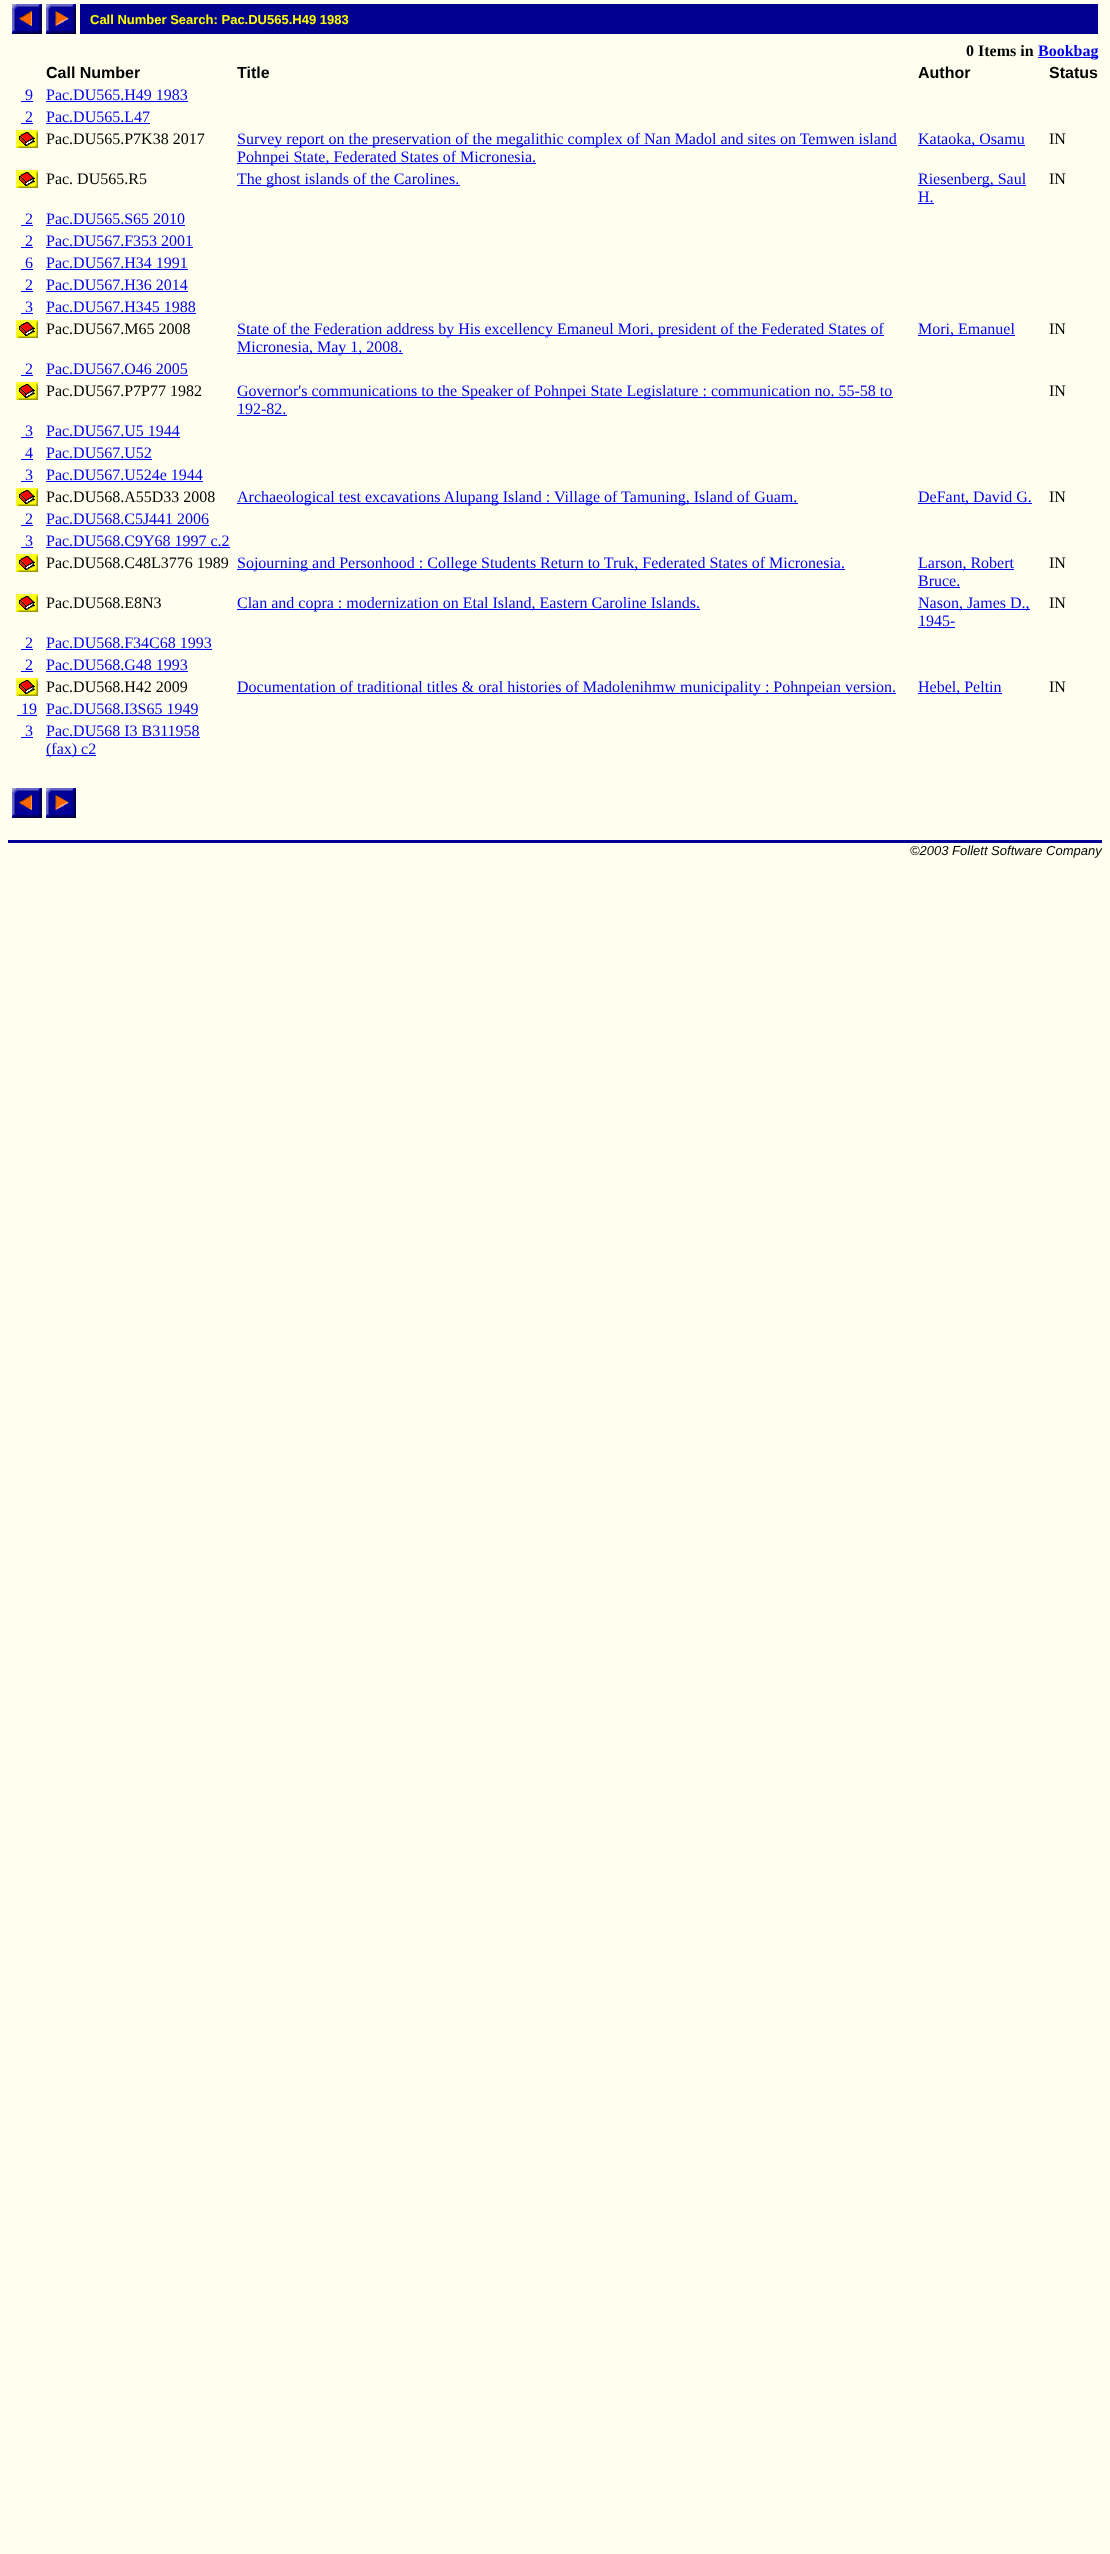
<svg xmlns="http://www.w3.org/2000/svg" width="1110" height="2554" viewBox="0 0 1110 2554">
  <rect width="100%" height="100%" fill="rgb(255,255,239)"/>
  <image x="12" y="4" width="30" height="30" href="pic1.png"/>
  <image x="46" y="4" width="30" height="30" href="pic2.png"/>
  <rect x="80" y="4" width="1018" height="30" fill="rgb(0,0,142)"/>
  <text x="90" y="24" font-family="Liberation Sans" font-size="13" font-weight="bold" fill="rgb(255,255,0)">Call Number Search: Pac.DU565.H49 1983</text>
  <text x="966" y="56" font-family="Liberation Serif" font-size="16" font-weight="bold" fill="rgb(0,0,0)">0 Items in</text>
  <rect x="1038" y="57" width="60" height="1" fill="rgb(0,0,238)"/>
  <text x="1038" y="56" font-family="Liberation Serif" font-size="16" font-weight="bold" fill="rgb(0,0,238)">Bookbag</text>
  <g font-family="Liberation Sans" font-size="16" font-weight="bold" fill="rgb(0,0,0)">
    <text x="46" y="78">Call Number</text>
    <text x="237" y="78">Title</text>
    <text x="918" y="78">Author</text>
    <text x="1049" y="78">Status</text>
  </g>
  <text x="25" y="100" font-family="Liberation Serif" font-size="16" fill="rgb(0,0,238)">9</text>
  <rect x="21" y="101" width="12" height="1" fill="rgb(0,0,238)"/>
  <text x="46" y="100" font-family="Liberation Serif" font-size="16" fill="rgb(0,0,238)">Pac.DU565.H49 1983</text>
  <rect x="46" y="101" width="142" height="1" fill="rgb(0,0,238)"/>
  <text x="25" y="122" font-family="Liberation Serif" font-size="16" fill="rgb(0,0,238)">2</text>
  <rect x="21" y="123" width="12" height="1" fill="rgb(0,0,238)"/>
  <text x="46" y="122" font-family="Liberation Serif" font-size="16" fill="rgb(0,0,238)">Pac.DU565.L47</text>
  <rect x="46" y="123" width="104" height="1" fill="rgb(0,0,238)"/>
  <image x="16" y="130" width="22" height="18" href="pic3.png"/>
  <text x="46" y="144" font-family="Liberation Serif" font-size="16" fill="rgb(0,0,0)">Pac.DU565.P7K38 2017</text>
  <rect x="237" y="145" width="660" height="1" fill="rgb(0,0,238)"/>
  <text x="237" y="144" font-family="Liberation Serif" font-size="16" fill="rgb(0,0,238)">Survey report on the preservation of the megalithic complex of Nan Madol and sites on Temwen island</text>
  <rect x="237" y="163" width="299" height="1" fill="rgb(0,0,238)"/>
  <text x="237" y="162" font-family="Liberation Serif" font-size="16" fill="rgb(0,0,238)">Pohnpei State, Federated States of Micronesia.</text>
  <rect x="918" y="145" width="107" height="1" fill="rgb(0,0,238)"/>
  <text x="918" y="144" font-family="Liberation Serif" font-size="16" fill="rgb(0,0,238)">Kataoka, Osamu</text>
  <text x="1049" y="144" font-family="Liberation Serif" font-size="16" fill="rgb(0,0,0)">IN</text>
  <image x="16" y="170" width="22" height="18" href="pic3.png"/>
  <text x="46" y="184" font-family="Liberation Serif" font-size="16" fill="rgb(0,0,0)">Pac. DU565.R5</text>
  <rect x="237" y="185" width="223" height="1" fill="rgb(0,0,238)"/>
  <text x="237" y="184" font-family="Liberation Serif" font-size="16" fill="rgb(0,0,238)">The ghost islands of the Carolines.</text>
  <rect x="918" y="185" width="108" height="1" fill="rgb(0,0,238)"/>
  <g font-family="Liberation Serif" font-size="16" fill="rgb(0,0,238)">
    <text>
      <tspan x="918" y="184">Riesenberg, Saul</tspan>
      <tspan x="918" y="202">H.</tspan>
    </text>
  </g>
  <rect x="918" y="203" width="16" height="1" fill="rgb(0,0,238)"/>
  <text x="1049" y="184" font-family="Liberation Serif" font-size="16" fill="rgb(0,0,0)">IN</text>
  <text x="25" y="224" font-family="Liberation Serif" font-size="16" fill="rgb(0,0,238)">2</text>
  <rect x="21" y="225" width="12" height="1" fill="rgb(0,0,238)"/>
  <text x="46" y="224" font-family="Liberation Serif" font-size="16" fill="rgb(0,0,238)">Pac.DU565.S65 2010</text>
  <rect x="46" y="225" width="139" height="1" fill="rgb(0,0,238)"/>
  <text x="25" y="246" font-family="Liberation Serif" font-size="16" fill="rgb(0,0,238)">2</text>
  <rect x="21" y="247" width="12" height="1" fill="rgb(0,0,238)"/>
  <text x="46" y="246" font-family="Liberation Serif" font-size="16" fill="rgb(0,0,238)">Pac.DU567.F353 2001</text>
  <rect x="46" y="247" width="147" height="1" fill="rgb(0,0,238)"/>
  <text x="25" y="268" font-family="Liberation Serif" font-size="16" fill="rgb(0,0,238)">6</text>
  <rect x="21" y="269" width="12" height="1" fill="rgb(0,0,238)"/>
  <text x="46" y="268" font-family="Liberation Serif" font-size="16" fill="rgb(0,0,238)">Pac.DU567.H34 1991</text>
  <rect x="46" y="269" width="142" height="1" fill="rgb(0,0,238)"/>
  <text x="25" y="290" font-family="Liberation Serif" font-size="16" fill="rgb(0,0,238)">2</text>
  <rect x="21" y="291" width="12" height="1" fill="rgb(0,0,238)"/>
  <text x="46" y="290" font-family="Liberation Serif" font-size="16" fill="rgb(0,0,238)">Pac.DU567.H36 2014</text>
  <rect x="46" y="291" width="142" height="1" fill="rgb(0,0,238)"/>
  <text x="25" y="312" font-family="Liberation Serif" font-size="16" fill="rgb(0,0,238)">3</text>
  <rect x="21" y="313" width="12" height="1" fill="rgb(0,0,238)"/>
  <text x="46" y="312" font-family="Liberation Serif" font-size="16" fill="rgb(0,0,238)">Pac.DU567.H345 1988</text>
  <rect x="46" y="313" width="150" height="1" fill="rgb(0,0,238)"/>
  <image x="16" y="320" width="22" height="18" href="pic3.png"/>
  <text x="46" y="334" font-family="Liberation Serif" font-size="16" fill="rgb(0,0,0)">Pac.DU567.M65 2008</text>
  <rect x="237" y="335" width="647" height="1" fill="rgb(0,0,238)"/>
  <text x="237" y="334" font-family="Liberation Serif" font-size="16" fill="rgb(0,0,238)">State of the Federation address by His excellency Emaneul Mori, president of the Federated States of</text>
  <rect x="237" y="353" width="166" height="1" fill="rgb(0,0,238)"/>
  <text x="237" y="352" font-family="Liberation Serif" font-size="16" fill="rgb(0,0,238)">Micronesia, May 1, 2008.</text>
  <rect x="918" y="335" width="97" height="1" fill="rgb(0,0,238)"/>
  <text x="918" y="334" font-family="Liberation Serif" font-size="16" fill="rgb(0,0,238)">Mori, Emanuel</text>
  <text x="1049" y="334" font-family="Liberation Serif" font-size="16" fill="rgb(0,0,0)">IN</text>
  <text x="25" y="374" font-family="Liberation Serif" font-size="16" fill="rgb(0,0,238)">2</text>
  <rect x="21" y="375" width="12" height="1" fill="rgb(0,0,238)"/>
  <text x="46" y="374" font-family="Liberation Serif" font-size="16" fill="rgb(0,0,238)">Pac.DU567.O46 2005</text>
  <rect x="46" y="375" width="142" height="1" fill="rgb(0,0,238)"/>
  <image x="16" y="382" width="22" height="18" href="pic3.png"/>
  <text x="46" y="396" font-family="Liberation Serif" font-size="16" fill="rgb(0,0,0)">Pac.DU567.P7P77 1982</text>
  <rect x="237" y="397" width="656" height="1" fill="rgb(0,0,238)"/>
  <g font-family="Liberation Serif" font-size="16" fill="rgb(0,0,238)">
    <text>
      <tspan x="237" y="396">Governor's communications to the Speaker of Pohnpei State Legislature : communication no. 55-58 to</tspan>
      <tspan x="237" y="414">192-82.</tspan>
    </text>
  </g>
  <rect x="237" y="415" width="50" height="1" fill="rgb(0,0,238)"/>
  <text x="1049" y="396" font-family="Liberation Serif" font-size="16" fill="rgb(0,0,0)">IN</text>
  <text x="25" y="436" font-family="Liberation Serif" font-size="16" fill="rgb(0,0,238)">3</text>
  <rect x="21" y="437" width="12" height="1" fill="rgb(0,0,238)"/>
  <text x="46" y="436" font-family="Liberation Serif" font-size="16" fill="rgb(0,0,238)">Pac.DU567.U5 1944</text>
  <rect x="46" y="437" width="134" height="1" fill="rgb(0,0,238)"/>
  <text x="25" y="458" font-family="Liberation Serif" font-size="16" fill="rgb(0,0,238)">4</text>
  <rect x="21" y="459" width="12" height="1" fill="rgb(0,0,238)"/>
  <text x="46" y="458" font-family="Liberation Serif" font-size="16" fill="rgb(0,0,238)">Pac.DU567.U52</text>
  <rect x="46" y="459" width="106" height="1" fill="rgb(0,0,238)"/>
  <text x="25" y="480" font-family="Liberation Serif" font-size="16" fill="rgb(0,0,238)">3</text>
  <rect x="21" y="481" width="12" height="1" fill="rgb(0,0,238)"/>
  <text x="46" y="480" font-family="Liberation Serif" font-size="16" fill="rgb(0,0,238)">Pac.DU567.U524e 1944</text>
  <rect x="46" y="481" width="157" height="1" fill="rgb(0,0,238)"/>
  <image x="16" y="488" width="22" height="18" href="pic3.png"/>
  <text x="46" y="502" font-family="Liberation Serif" font-size="16" fill="rgb(0,0,0)">Pac.DU568.A55D33 2008</text>
  <rect x="237" y="503" width="561" height="1" fill="rgb(0,0,238)"/>
  <text x="237" y="502" font-family="Liberation Serif" font-size="16" fill="rgb(0,0,238)">Archaeological test excavations Alupang Island : Village of Tamuning, Island of Guam.</text>
  <rect x="918" y="503" width="114" height="1" fill="rgb(0,0,238)"/>
  <text x="918" y="502" font-family="Liberation Serif" font-size="16" fill="rgb(0,0,238)">DeFant, David G.</text>
  <text x="1049" y="502" font-family="Liberation Serif" font-size="16" fill="rgb(0,0,0)">IN</text>
  <text x="25" y="524" font-family="Liberation Serif" font-size="16" fill="rgb(0,0,238)">2</text>
  <rect x="21" y="525" width="12" height="1" fill="rgb(0,0,238)"/>
  <text x="46" y="524" font-family="Liberation Serif" font-size="16" fill="rgb(0,0,238)">Pac.DU568.C5J441 2006</text>
  <rect x="46" y="525" width="163" height="1" fill="rgb(0,0,238)"/>
  <text x="25" y="546" font-family="Liberation Serif" font-size="16" fill="rgb(0,0,238)">3</text>
  <rect x="21" y="547" width="12" height="1" fill="rgb(0,0,238)"/>
  <text x="46" y="546" font-family="Liberation Serif" font-size="16" fill="rgb(0,0,238)">Pac.DU568.C9Y68 1997 c.2</text>
  <rect x="46" y="547" width="184" height="1" fill="rgb(0,0,238)"/>
  <image x="16" y="554" width="22" height="18" href="pic3.png"/>
  <text x="46" y="568" font-family="Liberation Serif" font-size="16" fill="rgb(0,0,0)">Pac.DU568.C48L3776 1989</text>
  <rect x="237" y="569" width="608" height="1" fill="rgb(0,0,238)"/>
  <text x="237" y="568" font-family="Liberation Serif" font-size="16" fill="rgb(0,0,238)">Sojourning and Personhood : College Students Return to Truk, Federated States of Micronesia.</text>
  <rect x="918" y="569" width="96" height="1" fill="rgb(0,0,238)"/>
  <g font-family="Liberation Serif" font-size="16" fill="rgb(0,0,238)">
    <text>
      <tspan x="918" y="568">Larson, Robert</tspan>
      <tspan x="918" y="586">Bruce.</tspan>
    </text>
  </g>
  <rect x="918" y="587" width="42" height="1" fill="rgb(0,0,238)"/>
  <text x="1049" y="568" font-family="Liberation Serif" font-size="16" fill="rgb(0,0,0)">IN</text>
  <image x="16" y="594" width="22" height="18" href="pic3.png"/>
  <text x="46" y="608" font-family="Liberation Serif" font-size="16" fill="rgb(0,0,0)">Pac.DU568.E8N3</text>
  <rect x="237" y="609" width="463" height="1" fill="rgb(0,0,238)"/>
  <text x="237" y="608" font-family="Liberation Serif" font-size="16" fill="rgb(0,0,238)">Clan and copra : modernization on Etal Island, Eastern Caroline Islands.</text>
  <rect x="918" y="609" width="112" height="1" fill="rgb(0,0,238)"/>
  <g font-family="Liberation Serif" font-size="16" fill="rgb(0,0,238)">
    <text>
      <tspan x="918" y="608">Nason, James D.,</tspan>
      <tspan x="918" y="626">1945-</tspan>
    </text>
  </g>
  <rect x="918" y="627" width="37" height="1" fill="rgb(0,0,238)"/>
  <text x="1049" y="608" font-family="Liberation Serif" font-size="16" fill="rgb(0,0,0)">IN</text>
  <text x="25" y="648" font-family="Liberation Serif" font-size="16" fill="rgb(0,0,238)">2</text>
  <rect x="21" y="649" width="12" height="1" fill="rgb(0,0,238)"/>
  <text x="46" y="648" font-family="Liberation Serif" font-size="16" fill="rgb(0,0,238)">Pac.DU568.F34C68 1993</text>
  <rect x="46" y="649" width="166" height="1" fill="rgb(0,0,238)"/>
  <text x="25" y="670" font-family="Liberation Serif" font-size="16" fill="rgb(0,0,238)">2</text>
  <rect x="21" y="671" width="12" height="1" fill="rgb(0,0,238)"/>
  <text x="46" y="670" font-family="Liberation Serif" font-size="16" fill="rgb(0,0,238)">Pac.DU568.G48 1993</text>
  <rect x="46" y="671" width="142" height="1" fill="rgb(0,0,238)"/>
  <image x="16" y="678" width="22" height="18" href="pic3.png"/>
  <text x="46" y="692" font-family="Liberation Serif" font-size="16" fill="rgb(0,0,0)">Pac.DU568.H42 2009</text>
  <rect x="237" y="693" width="659" height="1" fill="rgb(0,0,238)"/>
  <text x="237" y="692" font-family="Liberation Serif" font-size="16" fill="rgb(0,0,238)">Documentation of traditional titles &amp; oral histories of Madolenihmw municipality : Pohnpeian version.</text>
  <rect x="918" y="693" width="84" height="1" fill="rgb(0,0,238)"/>
  <text x="918" y="692" font-family="Liberation Serif" font-size="16" fill="rgb(0,0,238)">Hebel, Peltin</text>
  <text x="1049" y="692" font-family="Liberation Serif" font-size="16" fill="rgb(0,0,0)">IN</text>
  <text x="21" y="714" font-family="Liberation Serif" font-size="16" fill="rgb(0,0,238)">19</text>
  <rect x="17" y="715" width="20" height="1" fill="rgb(0,0,238)"/>
  <text x="46" y="714" font-family="Liberation Serif" font-size="16" fill="rgb(0,0,238)">Pac.DU568.I3S65 1949</text>
  <rect x="46" y="715" width="152" height="1" fill="rgb(0,0,238)"/>
  <text x="25" y="736" font-family="Liberation Serif" font-size="16" fill="rgb(0,0,238)">3</text>
  <rect x="21" y="737" width="12" height="1" fill="rgb(0,0,238)"/>
  <text x="46" y="736" font-family="Liberation Serif" font-size="16" fill="rgb(0,0,238)">Pac.DU568 I3 B311958</text>
  <rect x="46" y="737" width="154" height="1" fill="rgb(0,0,238)"/>
  <rect x="46" y="755" width="50" height="1" fill="rgb(0,0,238)"/>
  <text x="46" y="754" font-family="Liberation Serif" font-size="16" fill="rgb(0,0,238)">(fax) c2</text>
  <image x="12" y="788" width="30" height="30" href="pic1.png"/>
  <image x="46" y="788" width="30" height="30" href="pic2.png"/>
  <rect x="8" y="840" width="1094" height="3" fill="rgb(0,0,153)"/>
  <text x="910" y="855" font-family="Liberation Sans" font-size="13" font-style="italic" fill="rgb(0,0,0)">©2003 Follett Software Company</text>
</svg>
